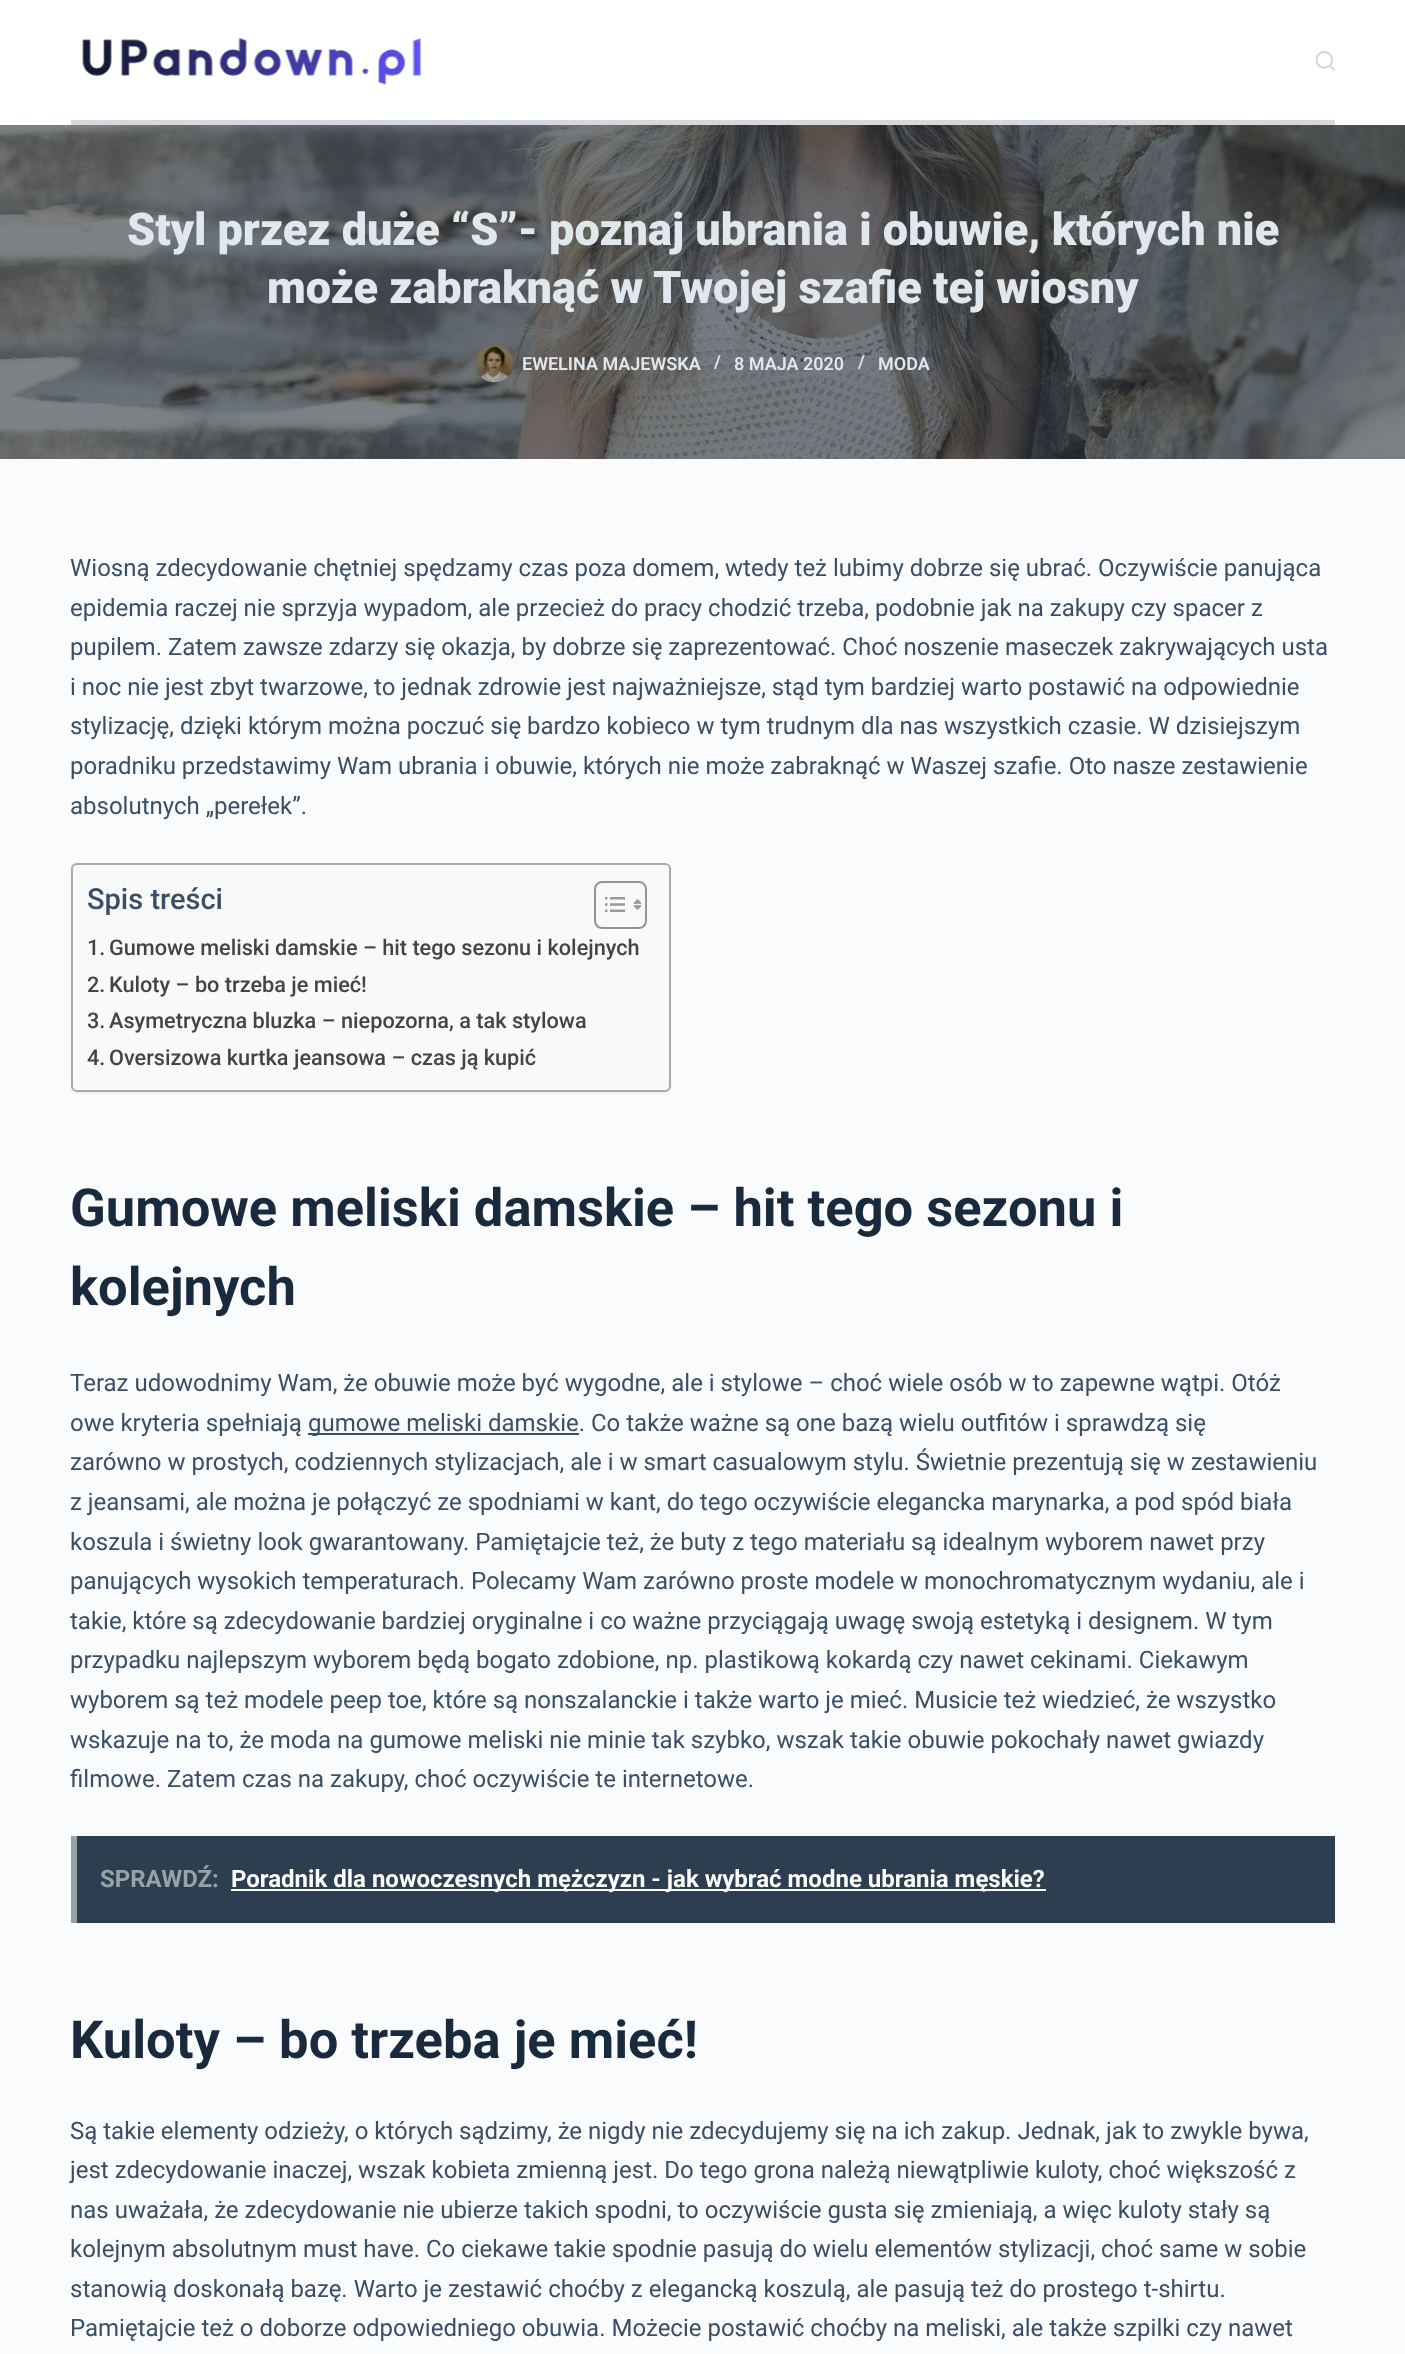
<svg xmlns="http://www.w3.org/2000/svg" width="1405" height="2354" viewBox="0 0 1405 2354">
  <rect width="100%" height="100%" fill="rgb(250,251,252)"/>
  <rect x="0" y="0" width="1405" height="125" fill="rgb(255,255,255)"/>
  <rect x="71" y="120" width="1264" height="5" fill="rgb(213,216,220)"/>
  <image x="82" y="37" width="339" height="48" href="pic1.png"/>
  <image x="1316" y="51" width="19" height="20" href="pic2.png"/>
  <image x="0" y="125" width="1405" height="334" href="pic3.png"/>
  <g font-family="Roboto" font-size="45" font-weight="900" fill="rgb(225,232,237)">
    <text x="127" y="245">Styl przez duże “S”- poznaj ubrania i obuwie, których nie</text>
    <text x="267" y="303">może zabraknąć w Twojej szafie tej wiosny</text>
  </g>
  <image x="475" y="345" width="38" height="38" href="pic4.png"/>
  <g font-family="Roboto" font-size="18" font-weight="600" fill="rgb(225,232,237)">
    <text x="522" y="370">EWELINA MAJEWSKA</text>
    <text x="714" y="368">/</text>
    <text x="734" y="370">8 MAJA 2020</text>
    <text x="858" y="368">/</text>
    <text x="878" y="370">MODA</text>
  </g>
  <g font-family="Roboto" font-size="24" fill="rgb(58,79,102)">
    <text>
      <tspan x="70" y="576">Wiosną zdecydowanie chętniej spędzamy czas poza domem, wtedy też lubimy dobrze się ubrać. Oczywiście panująca</tspan>
      <tspan x="70" y="616">epidemia raczej nie sprzyja wypadom, ale przecież do pracy chodzić trzeba, podobnie jak na zakupy czy spacer z</tspan>
      <tspan x="70" y="655">pupilem. Zatem zawsze zdarzy się okazja, by dobrze się zaprezentować. Choć noszenie maseczek zakrywających usta</tspan>
      <tspan x="70" y="695">i noc nie jest zbyt twarzowe, to jednak zdrowie jest najważniejsze, stąd tym bardziej warto postawić na odpowiednie</tspan>
      <tspan x="70" y="734">stylizację, dzięki którym można poczuć się bardzo kobieco w tym trudnym dla nas wszystkich czasie. W dzisiejszym</tspan>
      <tspan x="70" y="774">poradniku przedstawimy Wam ubrania i obuwie, których nie może zabraknąć w Waszej szafie. Oto nasze zestawienie</tspan>
      <tspan x="70" y="814">absolutnych „perełek”.</tspan>
    </text>
  </g>
  <rect x="71" y="864" width="600" height="230" rx="6" fill="rgba(0,0,0,0.05)" filter="blur(1px)"/>
  <rect x="72" y="864" width="598" height="227" rx="5" fill="rgb(249,249,249)" stroke="rgb(170,170,170)" stroke-width="2"/>
  <text x="87" y="909" font-family="Roboto" font-size="29" font-weight="500" fill="rgb(58,79,102)">Spis treści</text>
  <rect x="595" y="882" width="51" height="46" rx="7" fill="none" stroke="rgb(153,145,145)" stroke-width="2"/>
  <image x="605" y="897" width="20" height="15" href="pic5.png"/>
  <image x="633" y="899" width="9" height="11" href="pic6.png"/>
  <g font-family="Roboto" font-size="21.7" font-weight="500" fill="rgb(68,68,68)">
    <text x="87" y="955">1.</text>
    <text x="109" y="955">Gumowe meliski damskie – hit tego sezonu i kolejnych</text>
    <text x="87" y="992">2.</text>
    <text x="109" y="992">Kuloty – bo trzeba je mieć!</text>
    <text x="87" y="1028">3.</text>
    <text x="109" y="1028">Asymetryczna bluzka – niepozorna, a tak stylowa</text>
    <text x="87" y="1065">4.</text>
    <text x="109" y="1065">Oversizowa kurtka jeansowa – czas ją kupić</text>
  </g>
  <g font-family="Roboto" font-size="52.5" font-weight="bold" fill="rgb(25,42,61)">
    <text>
      <tspan x="70" y="1226">Gumowe meliski damskie – hit tego sezonu i</tspan>
      <tspan x="70" y="1305">kolejnych</tspan>
    </text>
  </g>
  <g font-family="Roboto" font-size="24" fill="rgb(58,79,102)">
    <text>
      <tspan x="70" y="1391">Teraz udowodnimy Wam, że obuwie może być wygodne, ale i stylowe – choć wiele osób w to zapewne wątpi. Otóż</tspan>
      <tspan x="70" y="1431">owe kryteria spełniają</tspan>
    </text>
  </g>
  <rect x="308" y="1433" width="271" height="2" fill="rgb(58,79,102)"/>
  <g font-family="Roboto" font-size="24" fill="rgb(58,79,102)">
    <text x="308" y="1431">gumowe meliski damskie. Co także ważne są one bazą wielu outfitów i sprawdzą się</text>
    <text>
      <tspan x="70" y="1470">zarówno w prostych, codziennych stylizacjach, ale i w smart casualowym stylu. Świetnie prezentują się w zestawieniu</tspan>
      <tspan x="70" y="1510">z jeansami, ale można je połączyć ze spodniami w kant, do tego oczywiście elegancka marynarka, a pod spód biała</tspan>
      <tspan x="70" y="1550">koszula i świetny look gwarantowany. Pamiętajcie też, że buty z tego materiału są idealnym wyborem nawet przy</tspan>
      <tspan x="70" y="1589">panujących wysokich temperaturach. Polecamy Wam zarówno proste modele w monochromatycznym wydaniu, ale i</tspan>
      <tspan x="70" y="1629">takie, które są zdecydowanie bardziej oryginalne i co ważne przyciągają uwagę swoją estetyką i designem. W tym</tspan>
      <tspan x="70" y="1668">przypadku najlepszym wyborem będą bogato zdobione, np. plastikową kokardą czy nawet cekinami. Ciekawym</tspan>
      <tspan x="70" y="1708">wyborem są też modele peep toe, które są nonszalanckie i także warto je mieć. Musicie też wiedzieć, że wszystko</tspan>
      <tspan x="70" y="1748">wskazuje na to, że moda na gumowe meliski nie minie tak szybko, wszak takie obuwie pokochały nawet gwiazdy</tspan>
      <tspan x="70" y="1787">filmowe. Zatem czas na zakupy, choć oczywiście te internetowe.</tspan>
    </text>
  </g>
  <rect x="77" y="1836" width="1258" height="87" fill="rgb(44,62,80)"/>
  <rect x="71" y="1836" width="6" height="87" fill="rgb(149,165,166)"/>
  <text x="100" y="1887" font-family="Roboto" font-size="24" font-weight="bold" fill="rgb(149,165,166)">SPRAWDŹ:</text>
  <rect x="231" y="1889" width="815" height="2" fill="rgb(255,255,255)"/>
  <text x="231" y="1887" font-family="Roboto" font-size="24" font-weight="bold" fill="rgb(255,255,255)">Poradnik dla nowoczesnych mężczyzn - jak wybrać modne ubrania męskie?</text>
  <text x="70" y="2058" font-family="Roboto" font-size="52.5" font-weight="bold" fill="rgb(25,42,61)">Kuloty – bo trzeba je mieć!</text>
  <g font-family="Roboto" font-size="24" fill="rgb(58,79,102)">
    <text>
      <tspan x="70" y="2139">Są takie elementy odzieży, o których sądzimy, że nigdy nie zdecydujemy się na ich zakup. Jednak, jak to zwykle bywa,</tspan>
      <tspan x="70" y="2178">jest zdecydowanie inaczej, wszak kobieta zmienną jest. Do tego grona należą niewątpliwie kuloty, choć większość z</tspan>
      <tspan x="70" y="2218">nas uważała, że zdecydowanie nie ubierze takich spodni, to oczywiście gusta się zmieniają, a więc kuloty stały są</tspan>
      <tspan x="70" y="2257">kolejnym absolutnym must have. Co ciekawe takie spodnie pasują do wielu elementów stylizacji, choć same w sobie</tspan>
      <tspan x="70" y="2297">stanowią doskonałą bazę. Warto je zestawić choćby z elegancką koszulą, ale pasują też do prostego t-shirtu.</tspan>
      <tspan x="70" y="2336">Pamiętajcie też o doborze odpowiedniego obuwia. Możecie postawić choćby na meliski, ale także szpilki czy nawet</tspan>
    </text>
  </g>
</svg>
